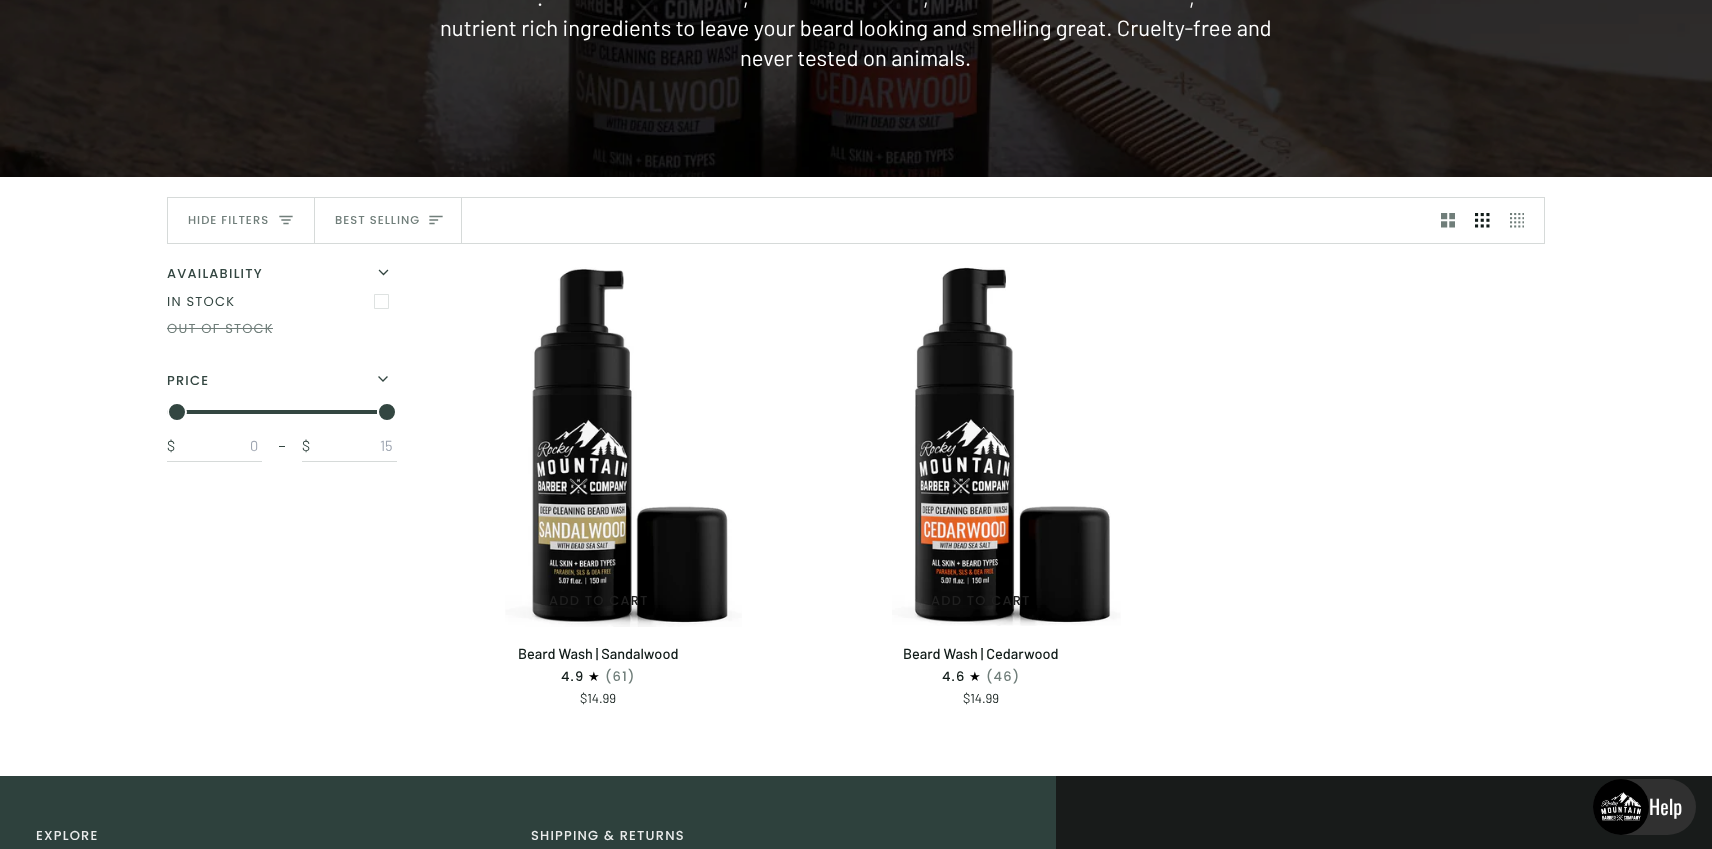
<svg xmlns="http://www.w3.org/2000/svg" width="1712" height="849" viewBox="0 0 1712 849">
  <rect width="100%" height="100%" fill="rgb(255,255,255)"/>
  <image x="0" y="0" width="1712" height="177" href="pic1.png"/>
  <g font-family="Barlow" font-size="22" fill="rgb(255,255,255)">
    <text x="537" y="6">.</text>
    <text x="743" y="6">,</text>
    <text x="923" y="6">,</text>
    <text x="1189" y="6">,</text>
    <text x="440" y="36">nutrient rich ingredients to leave your beard looking and smelling great. Cruelty-free and</text>
    <text x="740" y="66">never tested on animals.</text>
  </g>
  <rect x="167.5" y="197.5" width="1377" height="46" fill="none" stroke="rgb(214,218,217)"/>
  <rect x="314" y="198" width="1" height="45" fill="rgb(214,218,217)"/>
  <text x="188" y="224" font-family="Poppins" font-size="11.5" font-weight="500" letter-spacing="1" fill="rgb(112,126,122)">HIDE FILTERS</text>
  <path d="M292 216.5H280M290 220H282M288 223.5H284" fill="none" stroke="rgb(112,126,122)" stroke-width="1.3" stroke-linecap="square"/>
  <rect x="461" y="198" width="1" height="45" fill="rgb(214,218,217)"/>
  <text x="335" y="224" font-family="Poppins" font-size="11.5" font-weight="500" letter-spacing="1" fill="rgb(112,126,122)">BEST SELLING</text>
  <path d="M442 216.5H430M437.5 220H430M434 223.5H430" fill="none" stroke="rgb(112,126,122)" stroke-width="1.3" stroke-linecap="square"/>
  <image x="1441" y="213" width="14" height="15" href="pic2.png"/>
  <image x="1475" y="213" width="15" height="15" href="pic3.png"/>
  <image x="1510" y="213" width="14" height="15" href="pic4.png"/>
  <text x="167" y="278" font-family="Poppins" font-size="13" font-weight="500" letter-spacing="1.2" fill="rgb(51,70,65)">AVAILABILITY</text>
  <path d="M379.5 270.5L383.5 274.5L387.5 270.5" fill="none" stroke="rgb(51,70,65)" stroke-width="1.3" stroke-linecap="square"/>
  <text x="167" y="306" font-family="Poppins" font-size="13" letter-spacing="1.2" fill="rgb(51,70,65)">IN STOCK</text>
  <path d="M374.5 294.5H388.5V308.5H374.5Z" fill="none" stroke="rgb(214,218,217)" stroke-width="0.8"/>
  <text x="167" y="333" font-family="Poppins" font-size="13" letter-spacing="1.2" fill="rgb(112,126,122)">OUT OF STOCK</text>
  <rect x="167" y="328" width="106" height="1" fill="rgb(112,126,122)"/>
  <text x="167" y="385" font-family="Poppins" font-size="13" font-weight="500" letter-spacing="1.2" fill="rgb(51,70,65)">PRICE</text>
  <path d="M379 377L383 381L387 377" fill="none" stroke="rgb(51,70,65)" stroke-width="1.3" stroke-linecap="square"/>
  <path d="M169 410H377V414H169C168 414 167 413 167 412C167 411 168 410 169 410Z" fill="rgb(51,70,65)"/>
  <circle cx="177" cy="412" r="9" fill="rgb(51,70,65)" stroke="rgb(255,255,255)" stroke-width="2"/>
  <circle cx="387" cy="412" r="9" fill="rgb(51,70,65)" stroke="rgb(255,255,255)" stroke-width="2"/>
  <rect x="167" y="461" width="95" height="1" fill="rgb(214,218,217)"/>
  <text x="167" y="451" font-family="Barlow" font-size="14.5" fill="rgb(51,70,65)">$</text>
  <text x="250" y="451" font-family="Barlow" font-size="14.5" fill="rgb(156,163,175)">0</text>
  <rect x="279" y="446" width="6" height="1" fill="rgb(51,70,65)"/>
  <rect x="302" y="461" width="95" height="1" fill="rgb(214,218,217)"/>
  <text x="302" y="451" font-family="Barlow" font-size="14.5" fill="rgb(51,70,65)">$</text>
  <text x="380" y="451" font-family="Barlow" font-size="14.5" fill="rgb(156,163,175)">15</text>
  <image x="505" y="267" width="237" height="360" href="pic5.png"/>
  <text x="549" y="605" font-family="Poppins" font-size="13" font-weight="500" letter-spacing="1.2" fill="rgb(32,32,32)">ADD TO CART</text>
  <text x="518" y="659" font-family="Barlow" font-size="14.5" font-weight="500" fill="rgb(17,28,25)">Beard Wash | Sandalwood</text>
  <text x="561" y="681" font-family="Poppins" font-size="13" font-weight="500" letter-spacing="1.2" fill="rgb(17,28,25)">4.9</text>
  <text x="588" y="681" font-family="DejaVu Sans" font-size="13" letter-spacing="1.2" fill="rgb(0,0,0)">★</text>
  <text x="605" y="681" font-family="Poppins" font-size="13" font-weight="500" letter-spacing="1.2" fill="rgb(112,126,122)">(61)</text>
  <text x="580" y="703" font-family="Barlow" font-size="13" fill="rgb(17,28,25)">$14.99</text>
  <image x="892" y="267" width="229" height="359" href="pic6.png"/>
  <text x="931" y="605" font-family="Poppins" font-size="13" font-weight="500" letter-spacing="1.2" fill="rgb(32,32,32)">ADD TO CART</text>
  <text x="903" y="659" font-family="Barlow" font-size="14.5" font-weight="500" fill="rgb(17,28,25)">Beard Wash | Cedarwood</text>
  <text x="942" y="681" font-family="Poppins" font-size="13" font-weight="500" letter-spacing="1.2" fill="rgb(17,28,25)">4.6</text>
  <text x="969" y="681" font-family="DejaVu Sans" font-size="13" letter-spacing="1.2" fill="rgb(0,0,0)">★</text>
  <text x="986" y="681" font-family="Poppins" font-size="13" font-weight="500" letter-spacing="1.2" fill="rgb(112,126,122)">(46)</text>
  <text x="963" y="703" font-family="Barlow" font-size="13" fill="rgb(17,28,25)">$14.99</text>
  <rect x="1056" y="776" width="656" height="73" fill="rgb(24,27,26)"/>
  <rect x="1593" y="779" width="103" height="56" rx="28" fill="rgb(48,48,48)"/>
  <image x="1593" y="779" width="56" height="56" href="pic7.png"/>
  <text x="1649" y="815" font-family="Oswald" font-size="20" fill="rgb(255,255,255)">Help</text>
  <rect x="0" y="776" width="1056" height="73" fill="rgb(46,65,61)"/>
  <g font-family="Poppins" font-size="13" font-weight="500" letter-spacing="1.2" fill="rgb(234,236,236)">
    <text x="36" y="840">EXPLORE</text>
    <text x="531" y="840">SHIPPING &amp; RETURNS</text>
  </g>
</svg>
